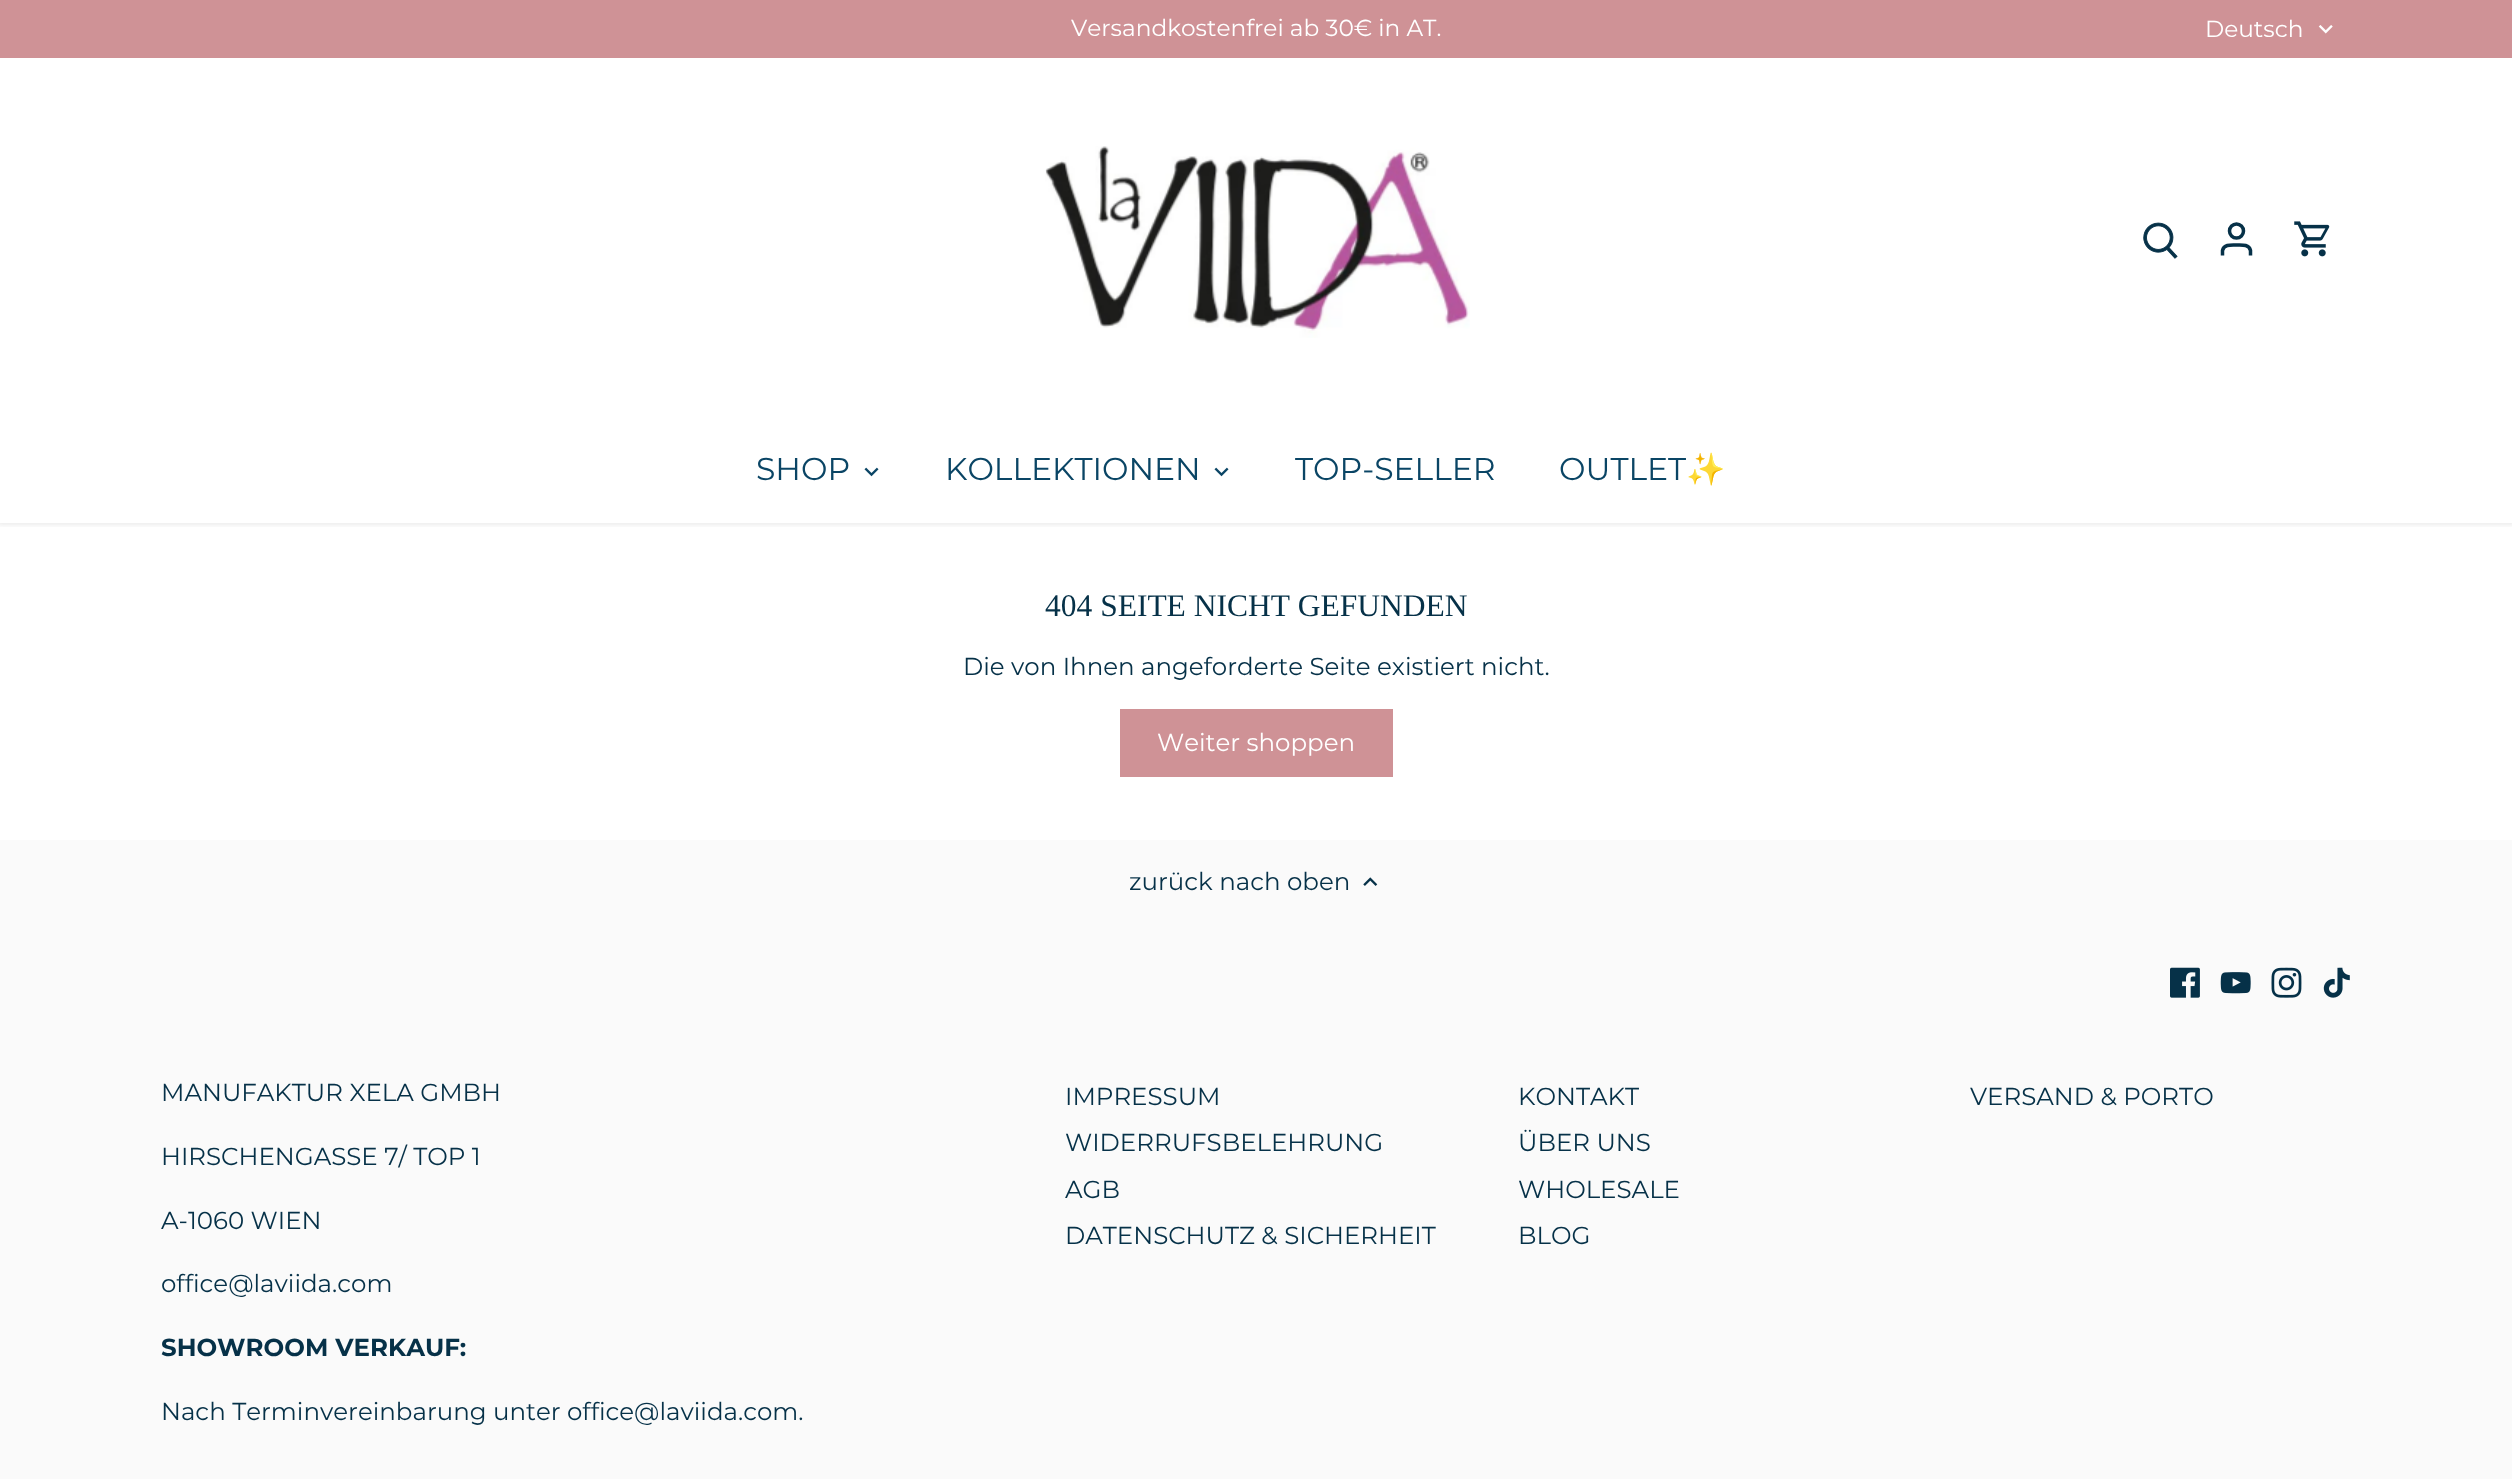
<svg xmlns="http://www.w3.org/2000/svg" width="2512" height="1479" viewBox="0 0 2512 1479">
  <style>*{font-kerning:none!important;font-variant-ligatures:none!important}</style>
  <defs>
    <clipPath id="clip1"><rect x="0" y="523" width="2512" height="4"/></clipPath>
  </defs>
  <rect width="100%" height="100%" fill="rgb(250,250,250)"/>
  <rect x="0" y="58" width="2512" height="782" fill="rgb(255,255,255)"/>
  <g clip-path="url(#clip1)">
    <rect x="-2" y="56" width="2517" height="469" fill="rgba(0,0,0,0.08)" filter="blur(2.5px)"/>
  </g>
  <rect x="0" y="0" width="2512" height="58" fill="rgb(207,146,150)"/>
  <g font-family="Montserrat" font-size="23.25" fill="rgb(255,255,255)">
    <text x="1071" y="36">Versandkostenfrei ab 30€ in AT.</text>
    <text x="2205" y="37">Deutsch</text>
  </g>
  <image x="2318" y="25" width="15" height="9" href="pic1.png"/>
  <image x="1045" y="146" width="425" height="192" href="pic2.png"/>
  <image x="2143" y="222" width="35" height="37" href="pic3.png"/>
  <circle cx="2236.5" cy="231" r="7" fill="none" stroke="rgb(6,49,72)" stroke-width="3.5"/>
  <path d="M2250.5 255.5V250.5C2249 244 2241.5 245 2236.5 245C2231.5 245 2224 244 2222.5 250.5V255.5" fill="none" stroke="rgb(6,49,72)" stroke-width="3.5"/>
  <image x="2294" y="221" width="36" height="36" href="pic4.png"/>
  <text x="756" y="480" font-family="Montserrat" font-size="31.5" fill="rgb(10,69,101)">SHOP</text>
  <image x="864" y="467" width="15" height="10" href="pic5.png"/>
  <text x="945" y="480" font-family="Montserrat" font-size="31.5" fill="rgb(10,69,101)">KOLLEKTIONEN</text>
  <image x="1214" y="467" width="15" height="10" href="pic5.png"/>
  <g font-family="Montserrat" font-size="31.5" fill="rgb(10,69,101)">
    <text x="1295" y="480">TOP-SELLER</text>
    <text x="1559" y="480">OUTLET</text>
  </g>
  <text x="1686" y="480" font-family="Noto Color Emoji" font-size="31.5" fill="rgb(10,69,101)">✨</text>
  <text x="1045" y="616" font-family="Liberation Serif" font-size="31.5" fill="rgb(6,49,72)">404 SEITE NICHT GEFUNDEN</text>
  <text x="963" y="675" font-family="Montserrat" font-size="24.5" fill="rgb(6,49,72)">Die von Ihnen angeforderte Seite existiert nicht.</text>
  <rect x="1120" y="709" width="273" height="68" fill="rgb(207,146,150)"/>
  <text x="1157" y="751" font-family="Montserrat" font-size="24.5" fill="rgb(255,255,255)">Weiter shoppen</text>
  <text x="1129" y="890" font-family="Montserrat" font-size="24.5" fill="rgb(6,49,72)">zurück nach oben</text>
  <image x="1363" y="877" width="15" height="9" href="pic6.png"/>
  <image x="2170" y="967" width="30" height="31" href="pic7.png"/>
  <image x="2220" y="972" width="31" height="22" href="pic8.png"/>
  <image x="2271" y="967" width="31" height="31" href="pic9.png"/>
  <image x="2323" y="967" width="27" height="31" href="pic10.png"/>
  <g font-family="Montserrat" font-size="24.5" fill="rgb(6,49,72)">
    <text x="161" y="1101">MANUFAKTUR XELA GMBH</text>
    <text x="161" y="1165">HIRSCHENGASSE 7/ TOP 1</text>
    <text x="161" y="1229">A-1060 WIEN</text>
    <text x="161" y="1292">office@laviida.com</text>
  </g>
  <text x="161" y="1356" font-family="Montserrat" font-size="24.5" font-weight="bold" fill="rgb(6,49,72)">SHOWROOM VERKAUF:</text>
  <g font-family="Montserrat" font-size="24.5" fill="rgb(6,49,72)">
    <text x="161" y="1420">Nach Terminvereinbarung unter office@laviida.com.</text>
    <text>
      <tspan x="1065" y="1105">IMPRESSUM</tspan>
      <tspan x="1065" y="1151">WIDERRUFSBELEHRUNG</tspan>
      <tspan x="1065" y="1198">AGB</tspan>
      <tspan x="1065" y="1244">DATENSCHUTZ &amp; SICHERHEIT</tspan>
    </text>
    <text>
      <tspan x="1518" y="1105">KONTAKT</tspan>
      <tspan x="1518" y="1151">ÜBER UNS</tspan>
      <tspan x="1518" y="1198">WHOLESALE</tspan>
      <tspan x="1518" y="1244">BLOG</tspan>
    </text>
    <text x="1970" y="1105">VERSAND &amp; PORTO</text>
  </g>
</svg>
